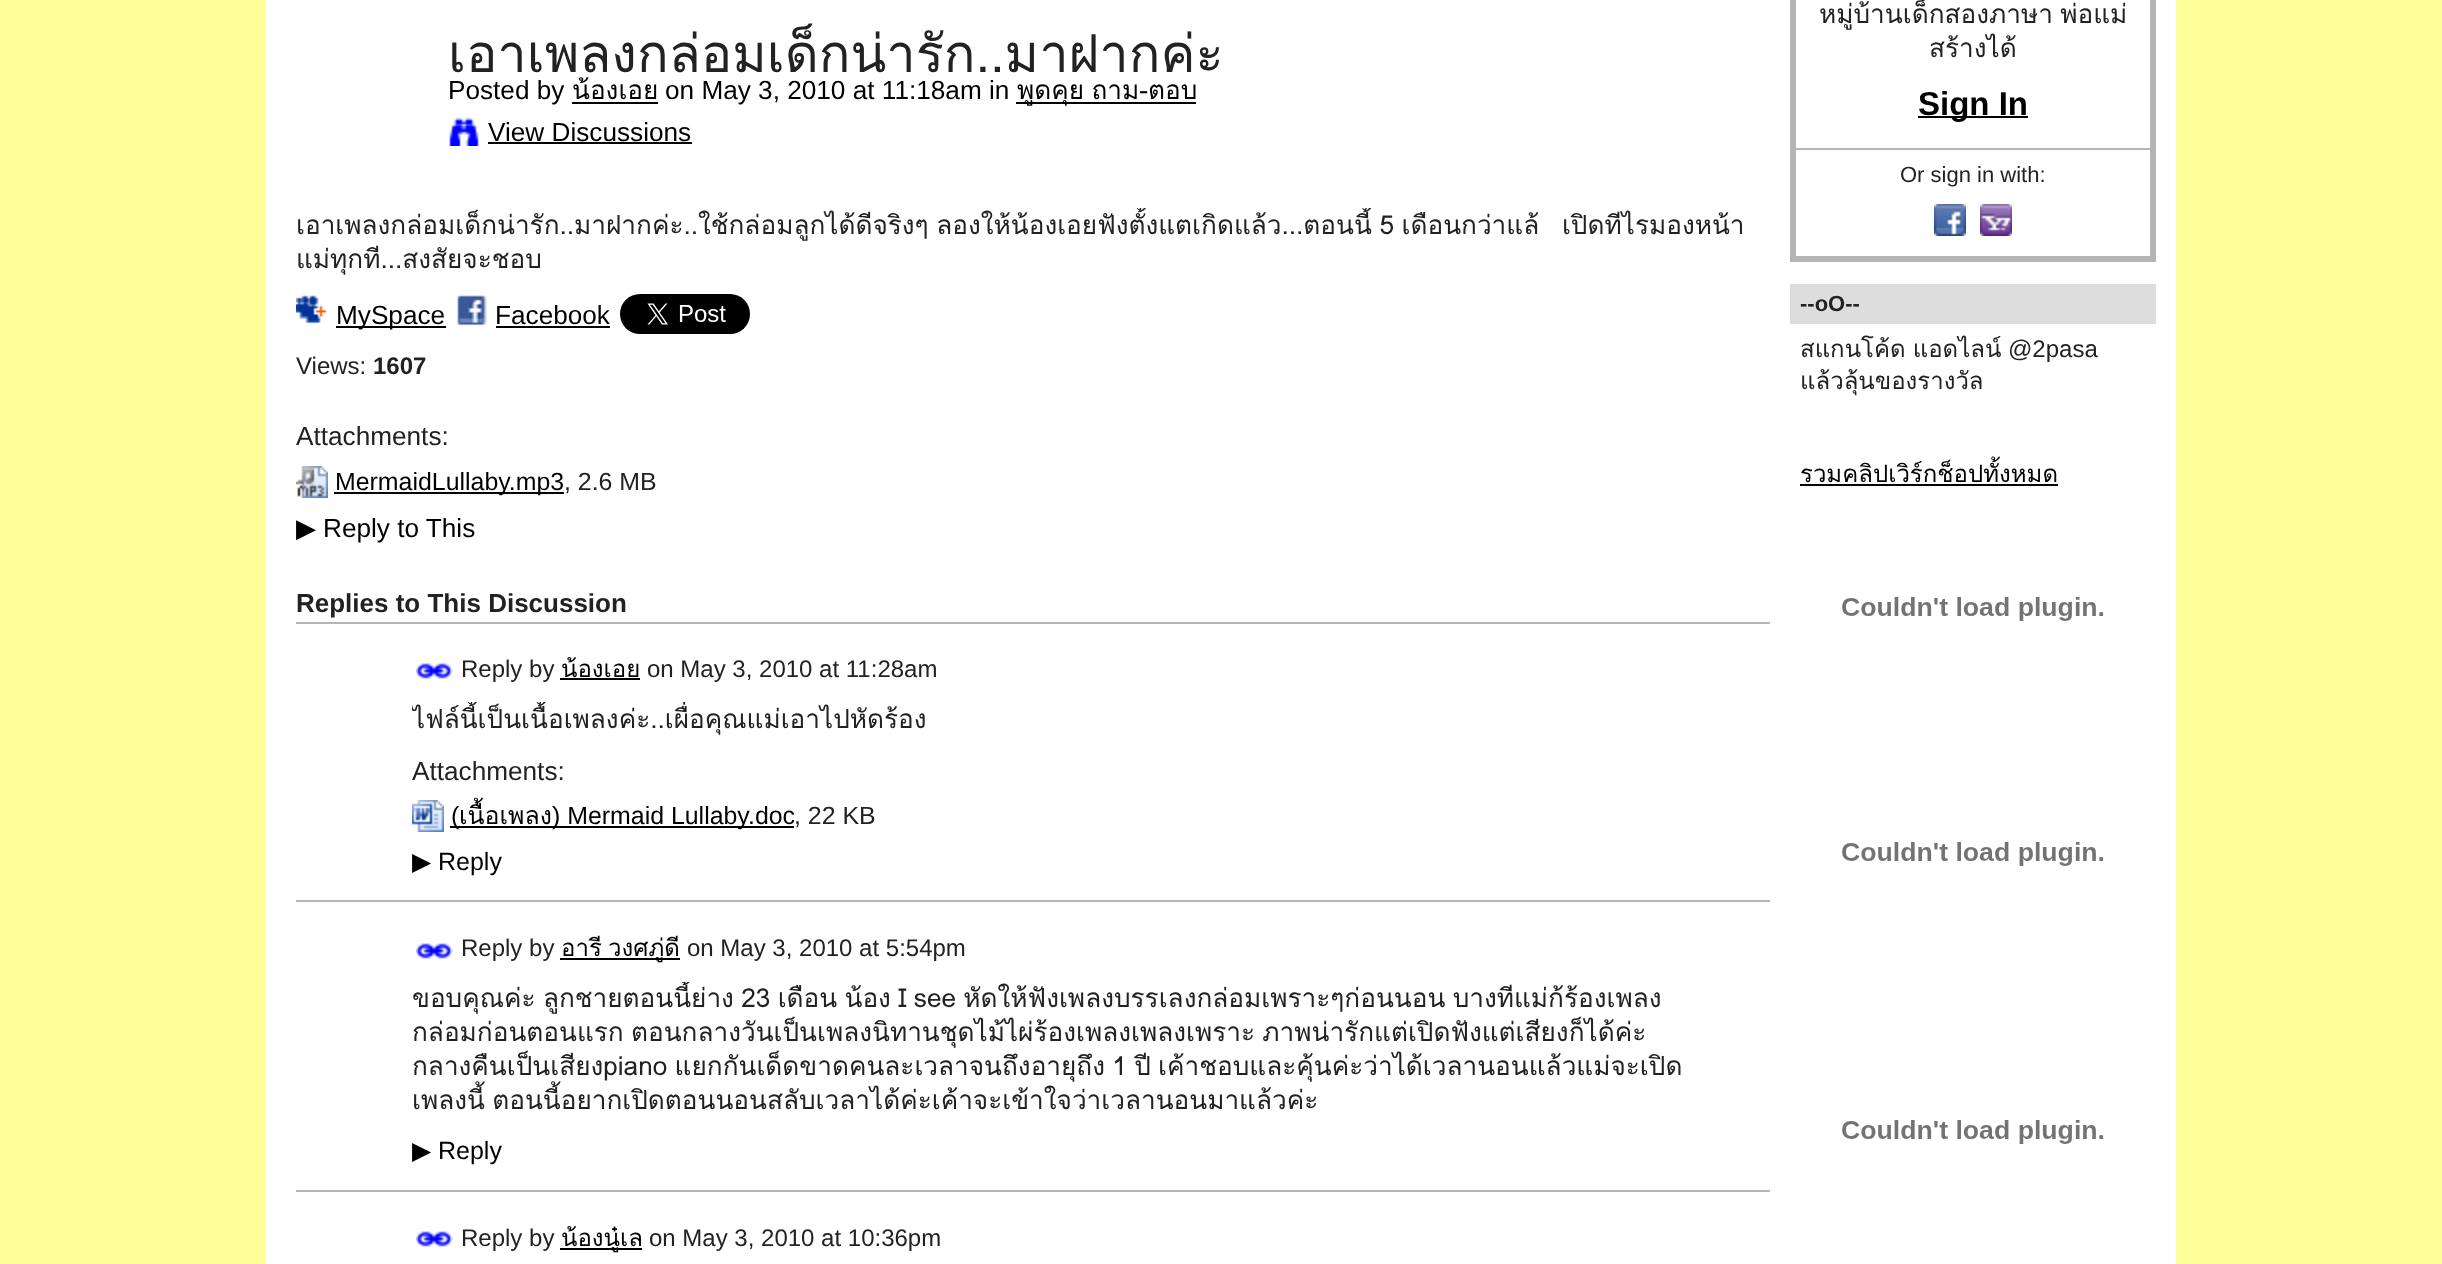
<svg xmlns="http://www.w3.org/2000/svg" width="2442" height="1264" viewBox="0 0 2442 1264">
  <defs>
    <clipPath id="clip1"><rect x="296" y="208" width="1474" height="68"/></clipPath>
    <clipPath id="clip2"><rect x="412" y="702" width="1288" height="34"/></clipPath>
    <clipPath id="clip3"><rect x="412" y="982" width="1288" height="136"/></clipPath>
  </defs>
  <rect width="100%" height="100%" fill="rgb(255,255,153)"/>
  <rect x="266" y="0" width="1910" height="1264" fill="rgb(255,255,255)"/>
  <text x="448" y="72" font-family="Loma" font-size="52.4" fill="rgb(34,34,34)">เอาเพลงกล่อมเด็กน่ารัก..มาฝากค่ะ</text>
  <text x="448" y="99" font-family="Liberation Sans" font-size="26.18" fill="rgb(0,0,0)">Posted by</text>
  <text x="572" y="99" font-family="Loma" font-size="26.18" fill="rgb(0,0,0)">น้องเอย</text>
  <rect x="572" y="102" width="86" height="2" fill="rgb(0,0,0)"/>
  <text x="665" y="99" font-family="Liberation Sans" font-size="26.18" fill="rgb(0,0,0)">on May 3, 2010 at 11:18am in</text>
  <rect x="1016" y="102" width="180" height="2" fill="rgb(0,0,0)"/>
  <text x="1017" y="99" word-spacing="-1.5" font-family="Loma" font-size="26.18" fill="rgb(0,0,0)">พูดคุย ถาม-ตอบ</text>
  <image x="449" y="117" width="30" height="29" href="pic1.png"/>
  <text x="488" y="141" font-family="Liberation Sans" font-size="26.18" fill="rgb(0,0,0)">View Discussions</text>
  <rect x="488" y="142" width="204" height="2" fill="rgb(0,0,0)"/>
  <g clip-path="url(#clip1)">
    <text x="296" y="234" word-spacing="-1.25" font-family="Loma" font-size="26.18" fill="rgb(34,34,34)" xml:space="preserve">เอาเพลงกล่อมเด็กน่ารัก..มาฝากค่ะ..ใช้กล่อมลูกได้ดีจริงๆ ลองให้น้องเอยฟังตั้งแตเกิดแล้ว...ตอนนี้ 5 เดือนกว่าแล้   เปิดทีไรมองหน้า</text>
  </g>
  <text x="296" y="268" font-family="Loma" font-size="26.18" fill="rgb(34,34,34)">แม่ทุกที...สงสัยจะชอบ</text>
  <image x="296" y="295" width="31" height="29" href="pic2.png"/>
  <rect x="336" y="326" width="110" height="2" fill="rgb(0,0,0)"/>
  <text x="336" y="324" font-family="Liberation Sans" font-size="26.18" fill="rgb(0,0,0)">MySpace</text>
  <image x="457" y="295" width="30" height="31" href="pic3.png"/>
  <text x="495" y="324" font-family="Liberation Sans" font-size="26.18" fill="rgb(0,0,0)">Facebook</text>
  <rect x="496" y="326" width="114" height="2" fill="rgb(0,0,0)"/>
  <image x="620" y="294" width="130" height="40" href="pic4.png"/>
  <text x="296" y="374" font-family="Liberation Sans" font-size="24" fill="rgb(34,34,34)">Views:</text>
  <text x="373" y="374" font-family="Liberation Sans" font-size="24" font-weight="bold" fill="rgb(34,34,34)">1607</text>
  <text x="296" y="445" font-family="Liberation Sans" font-size="26.18" fill="rgb(34,34,34)">Attachments:</text>
  <image x="296" y="466" width="32" height="32" href="pic5.png"/>
  <rect x="334" y="492" width="230" height="2" fill="rgb(0,0,0)"/>
  <text x="335" y="490" font-family="Liberation Sans" font-size="24.9" fill="rgb(0,0,0)">MermaidLullaby.mp3</text>
  <text x="564" y="490" font-family="Liberation Sans" font-size="24.9" fill="rgb(34,34,34)">, 2.6 MB</text>
  <text x="296" y="537" font-family="DejaVu Sans" font-size="26.18" fill="rgb(0,0,0)">▶</text>
  <text x="323" y="537" font-family="Liberation Sans" font-size="26.18" fill="rgb(0,0,0)">Reply to This</text>
  <text x="296" y="612" font-family="Liberation Sans" font-size="26" font-weight="bold" fill="rgb(34,34,34)">Replies to This Discussion</text>
  <rect x="296" y="622" width="1474" height="2" fill="rgb(181,181,181)"/>
  <image x="416" y="663" width="37" height="16" href="pic6.png"/>
  <text x="461" y="677" font-family="Liberation Sans" font-size="24" fill="rgb(34,34,34)">Reply by</text>
  <text x="561" y="677" font-family="Loma" font-size="24" fill="rgb(0,0,0)">น้องเอย</text>
  <rect x="560" y="678" width="80" height="2" fill="rgb(0,0,0)"/>
  <text x="647" y="677" font-family="Liberation Sans" font-size="24" fill="rgb(34,34,34)">on May 3, 2010 at 11:28am</text>
  <g clip-path="url(#clip2)">
    <text x="412" y="728" font-family="Loma" font-size="26.18" fill="rgb(34,34,34)">ไฟล์นี้เป็นเนื้อเพลงค่ะ..เผื่อคุณแม่เอาไปหัดร้อง</text>
  </g>
  <text x="412" y="780" font-family="Liberation Sans" font-size="26.18" fill="rgb(34,34,34)">Attachments:</text>
  <image x="412" y="800" width="32" height="32" href="pic7.png"/>
  <rect x="450" y="826" width="344" height="2" fill="rgb(0,0,0)"/>
  <text x="451" y="824" font-family="Liberation Sans" font-size="24.9" fill="rgb(0,0,0)">(</text>
  <text x="459" y="824" font-family="Loma" font-size="24.9" fill="rgb(0,0,0)">เนื้อเพลง</text>
  <text x="552" y="824" font-family="Liberation Sans" font-size="24.9" fill="rgb(0,0,0)">) Mermaid Lullaby.doc</text>
  <text x="794" y="824" font-family="Liberation Sans" font-size="24.9" fill="rgb(34,34,34)">, 22 KB</text>
  <text x="412" y="870" font-family="DejaVu Sans" font-size="25" fill="rgb(0,0,0)">▶</text>
  <text x="438" y="870" font-family="Liberation Sans" font-size="25" fill="rgb(0,0,0)">Reply</text>
  <rect x="296" y="900" width="1474" height="2" fill="rgb(181,181,181)"/>
  <image x="416" y="943" width="37" height="16" href="pic6.png"/>
  <text x="461" y="956" font-family="Liberation Sans" font-size="24" fill="rgb(34,34,34)">Reply by</text>
  <text x="561" y="956" font-family="Loma" font-size="24" fill="rgb(0,0,0)">อารี</text>
  <rect x="560" y="958" width="120" height="2" fill="rgb(0,0,0)"/>
  <text x="608" y="956" font-family="Loma" font-size="24" fill="rgb(0,0,0)">วงศภู่ดี</text>
  <text x="687" y="956" font-family="Liberation Sans" font-size="24" fill="rgb(34,34,34)">on May 3, 2010 at 5:54pm</text>
  <g clip-path="url(#clip3)">
    <text x="412" y="1007" word-spacing="-1.5" font-family="Loma" font-size="26.18" fill="rgb(34,34,34)">ขอบคุณค่ะ ลูกชายตอนนี้ย่าง 23 เดือน น้อง I see หัดให้ฟังเพลงบรรเลงกล่อมเพราะๆก่อนนอน บางทีแม่ก้ร้องเพลง</text>
  </g>
  <g font-family="Loma" font-size="26.18" fill="rgb(34,34,34)">
    <text>
      <tspan x="412" y="1041" word-spacing="-1.5">กล่อมก่อนตอนแรก ตอนกลางวันเป็นเพลงนิทานชุดไม้ไผ่ร้องเพลงเพลงเพราะ ภาพน่ารักแต่เปิดฟังแต่เสียงก็ได้ค่ะ</tspan>
      <tspan x="412" y="1075" word-spacing="-1.5">กลางคืนเป็นเสียงpiano แยกกันเด็ดขาดคนละเวลาจนถึงอายุถึง 1 ปี เค้าชอบและคุ้นค่ะว่าได้เวลานอนแล้วแม่จะเปิด</tspan>
      <tspan x="412" y="1109" word-spacing="-1.5">เพลงนี้ ตอนนี้อยากเปิดตอนนอนสลับเวลาได้ค่ะเค้าจะเข้าใจว่าเวลานอนมาแล้วค่ะ</tspan>
    </text>
  </g>
  <text x="412" y="1159" font-family="DejaVu Sans" font-size="25" fill="rgb(0,0,0)">▶</text>
  <text x="438" y="1159" font-family="Liberation Sans" font-size="25" fill="rgb(0,0,0)">Reply</text>
  <rect x="296" y="1190" width="1474" height="2" fill="rgb(181,181,181)"/>
  <image x="416" y="1231" width="37" height="16" href="pic6.png"/>
  <text x="461" y="1246" font-family="Liberation Sans" font-size="24" fill="rgb(34,34,34)">Reply by</text>
  <rect x="560" y="1248" width="82" height="2" fill="rgb(0,0,0)"/>
  <text x="561" y="1246" font-family="Loma" font-size="24" fill="rgb(0,0,0)">น้องนู๋เล</text>
  <text x="649" y="1246" font-family="Liberation Sans" font-size="24" fill="rgb(34,34,34)">on May 3, 2010 at 10:36pm</text>
  <rect x="1793" y="-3" width="360" height="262" fill="none" stroke="rgb(181,181,181)" stroke-width="6"/>
  <g font-family="Loma" font-size="26.18" fill="rgb(34,34,34)">
    <text x="1819" y="23" word-spacing="-1.5">หมู่บ้านเด็กสองภาษา พ่อแม่</text>
    <text x="1929" y="57">สร้างได้</text>
  </g>
  <rect x="1918" y="116" width="110" height="2" fill="rgb(0,0,0)"/>
  <text x="1918" y="115" font-family="Liberation Sans" font-size="33" font-weight="bold" fill="rgb(0,0,0)">Sign In</text>
  <rect x="1796" y="148" width="354" height="2" fill="rgb(181,181,181)"/>
  <text x="1900" y="182" font-family="Liberation Sans" font-size="22" fill="rgb(34,34,34)">Or sign in with:</text>
  <image x="1934" y="204" width="32" height="32" href="pic8.png"/>
  <image x="1980" y="204" width="32" height="32" href="pic9.png"/>
  <rect x="1790" y="284" width="366" height="40" fill="rgb(221,221,221)"/>
  <text x="1800" y="311" font-family="Liberation Sans" font-size="22" font-weight="bold" fill="rgb(34,34,34)">--oO--</text>
  <text x="1800" y="357" word-spacing="-1" font-family="Loma" font-size="24" fill="rgb(34,34,34)">สแกนโค้ด แอดไลน์</text>
  <text x="2008" y="357" font-family="Liberation Sans" font-size="24" fill="rgb(34,34,34)">@2pasa</text>
  <text x="1800" y="389" font-family="Loma" font-size="24" fill="rgb(34,34,34)">แล้วลุ้นของรางวัล</text>
  <text x="1800" y="482" font-family="Loma" font-size="24" fill="rgb(0,0,0)">รวมคลิปเวิร์กช็อปทั้งหมด</text>
  <rect x="1800" y="484" width="258" height="2" fill="rgb(0,0,0)"/>
  <image x="1842" y="597" width="262" height="24" href="pic10.png"/>
  <image x="1842" y="842" width="262" height="24" href="pic10.png"/>
  <image x="1842" y="1120" width="262" height="24" href="pic10.png"/>
</svg>
